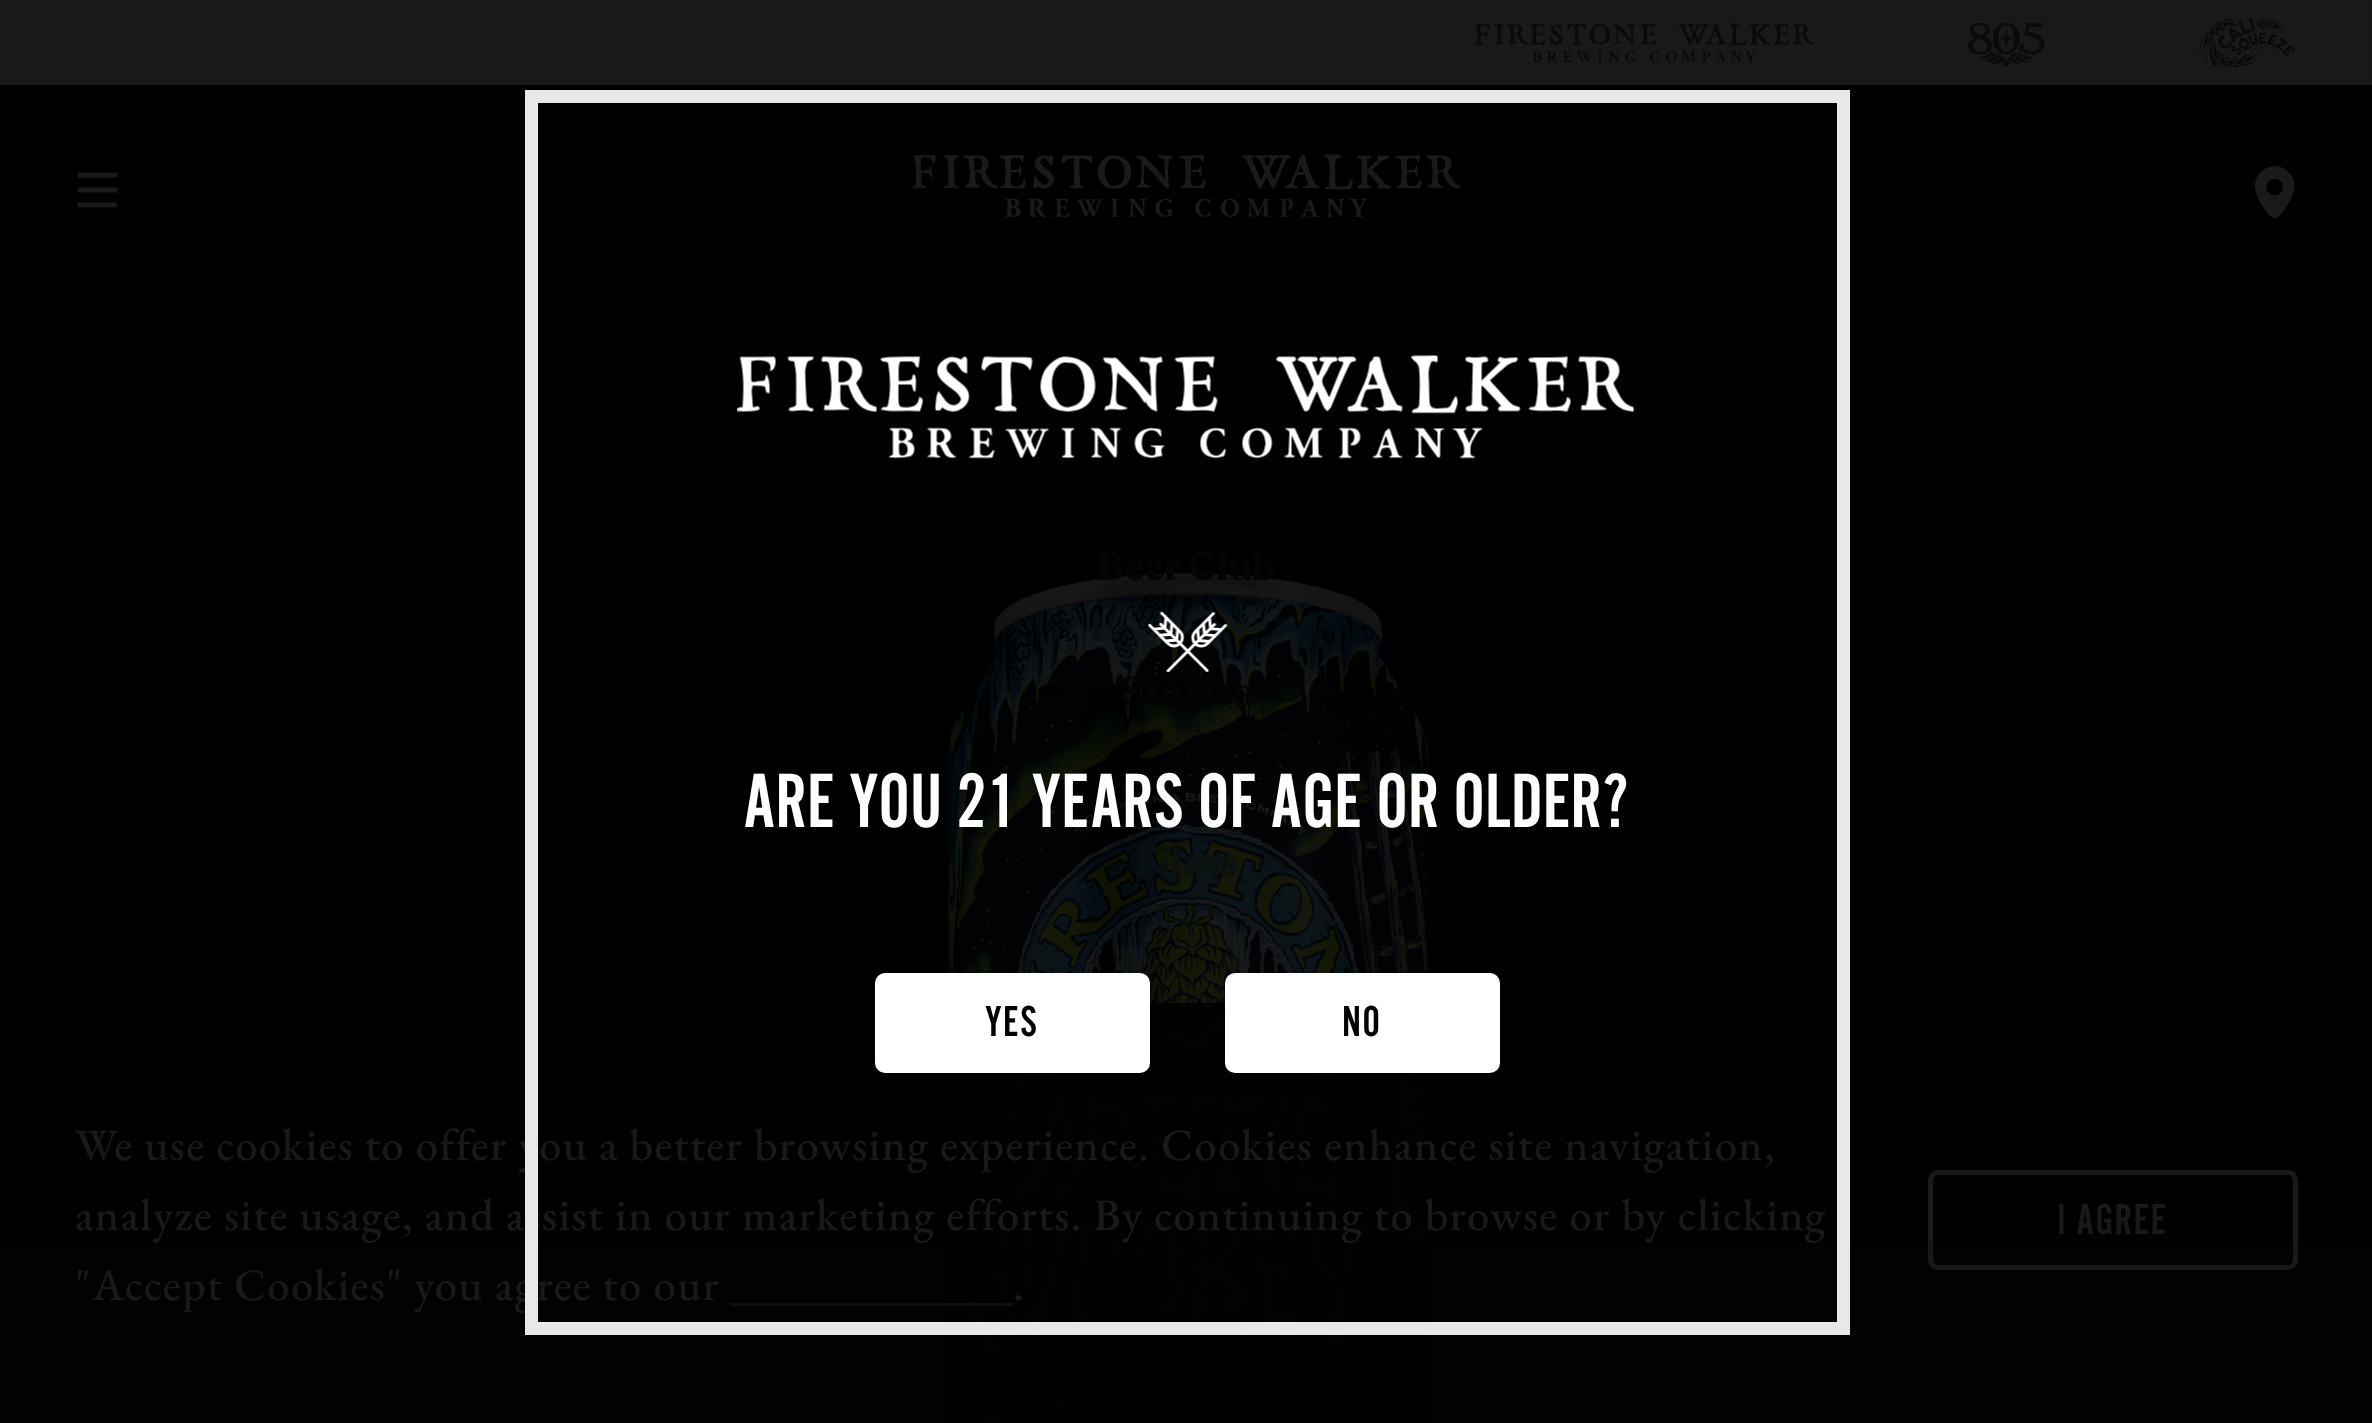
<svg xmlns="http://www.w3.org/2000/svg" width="2372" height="1423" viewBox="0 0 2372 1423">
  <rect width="100%" height="100%" fill="rgb(0,0,0)"/>
  <rect x="0" y="0" width="2370" height="85" fill="rgb(25,25,25)"/>
  <image x="1475" y="23" width="339" height="40" href="pic1.png"/>
  <image x="1967" y="22" width="78" height="46" href="pic2.png"/>
  <rect x="2370" y="0" width="2" height="85" fill="rgb(24,24,24)"/>
  <image x="2197" y="17" width="98" height="51" href="pic3.png"/>
  <image x="77" y="172" width="41" height="36" href="pic4.png"/>
  <image x="912" y="154" width="549" height="63" href="pic5.png"/>
  <image x="2255" y="166" width="40" height="53" href="pic6.png"/>
  <rect x="0" y="1245" width="2372" height="178" fill="rgb(25,25,25)"/>
  <image x="947" y="572" width="482" height="851" href="pic7.png"/>
  <g font-family="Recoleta" font-size="40" font-weight="bold" fill="rgb(4,4,4)">
    <text x="1097" y="580">Beer Club</text>
    <text x="1119" y="705">Stories</text>
  </g>
  <text x="1134" y="875" font-family="Recoleta" font-size="40" font-weight="bold" fill="rgb(11,17,14)">Films</text>
  <rect x="0" y="1003" width="2372" height="420" fill="rgba(0,0,0,0.9)"/>
  <g font-family="EB Garamond" font-size="45" font-weight="500" letter-spacing="1.25" fill="rgb(25,25,25)">
    <text>
      <tspan x="75" y="1160">We use cookies to offer you a better browsing experience. Cookies enhance site navigation,</tspan>
      <tspan x="75" y="1230">analyze site usage, and assist in our marketing efforts. By continuing to browse or by clicking</tspan>
      <tspan x="75" y="1300">"Accept Cookies" you agree to our</tspan>
    </text>
  </g>
  <rect x="730" y="1303" width="283" height="3" fill="rgb(15,15,15)"/>
  <rect x="531.5" y="96.5" width="1312" height="1232" fill="none" stroke="rgb(232,232,232)" stroke-width="13"/>
  <image x="737" y="355" width="898" height="104" href="pic8.png"/>
  <image x="1147" y="611" width="81" height="62" href="pic9.png"/>
  <text x="743" y="827" font-family="'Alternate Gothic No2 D'" font-size="80" fill="rgb(255,255,255)">ARE YOU 21 YEARS OF AGE OR OLDER?</text>
  <rect x="875" y="973" width="275" height="100" rx="10" fill="rgb(255,255,255)"/>
  <text x="985" y="1036" font-family="'Alternate Gothic No2 D'" font-size="45" letter-spacing="1.25" fill="rgb(4,4,4)">YES</text>
  <rect x="1225" y="973" width="275" height="100" rx="10" fill="rgb(255,255,255)"/>
  <text x="1342" y="1036" font-family="'Alternate Gothic No2 D'" font-size="45" letter-spacing="1.25" fill="rgb(4,4,4)">NO</text>
  <text x="1013" y="1300" font-family="EB Garamond" font-size="45" font-weight="500" letter-spacing="1.25" fill="rgb(25,25,25)">.</text>
  <rect x="1930.5" y="1172.5" width="365" height="95" rx="7.5" fill="none" stroke="rgb(25,25,25)" stroke-width="5"/>
  <text x="2057" y="1234" font-family="'Alternate Gothic No2 D'" font-size="45" letter-spacing="1.25" fill="rgb(25,25,25)">I AGREE</text>
</svg>
